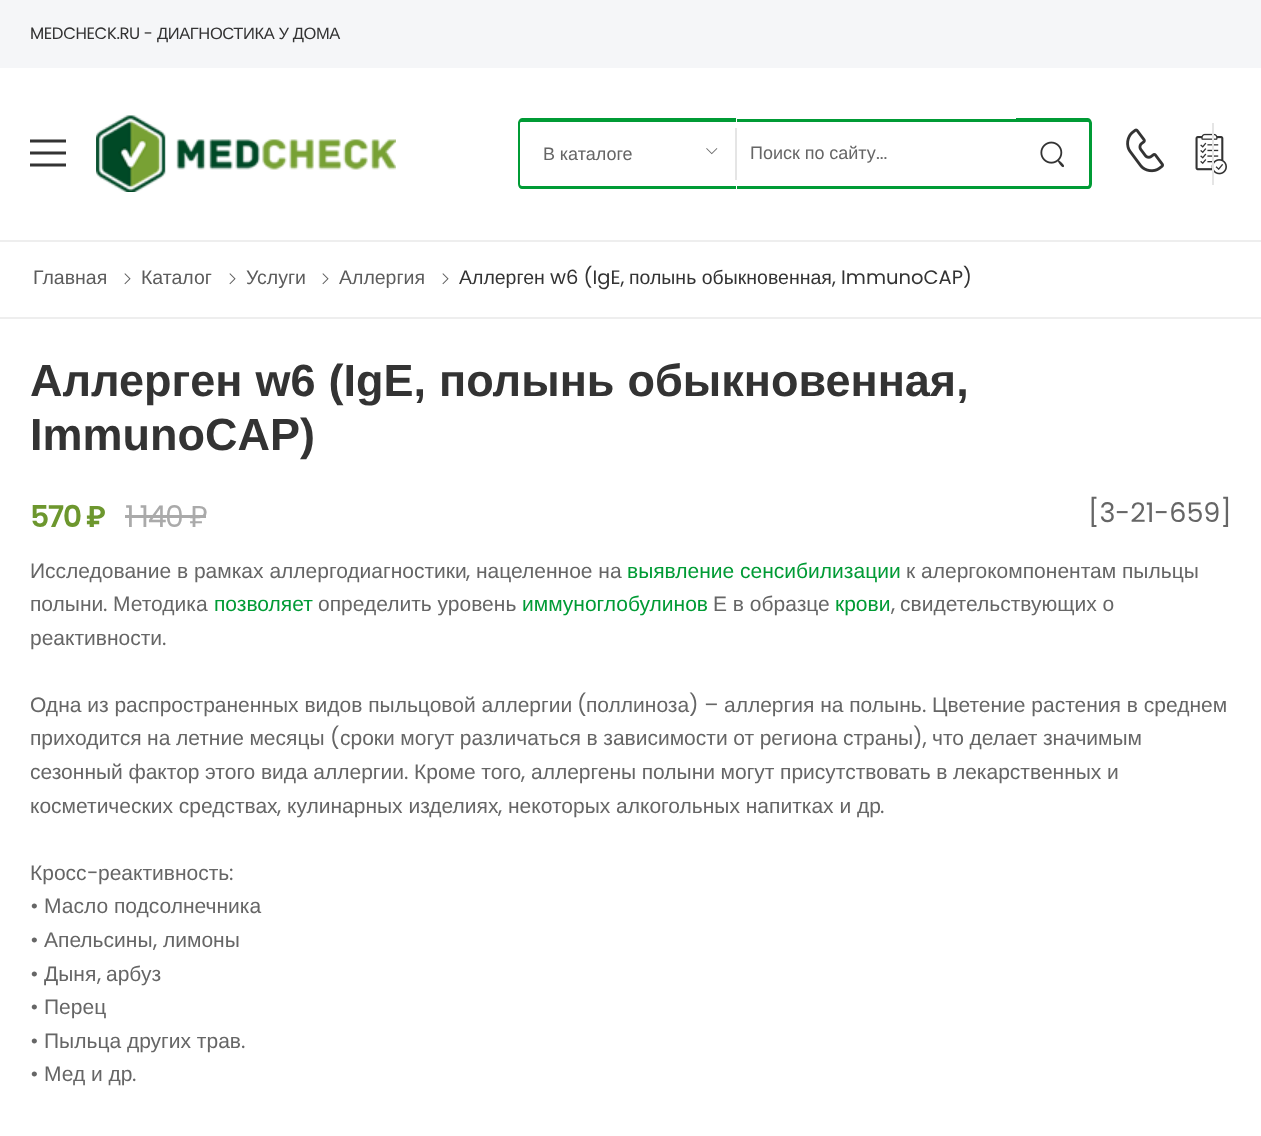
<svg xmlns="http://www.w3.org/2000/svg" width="1261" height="1136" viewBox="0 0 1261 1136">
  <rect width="100%" height="100%" fill="rgb(255,255,255)"/>
  <rect x="0" y="0" width="1261" height="68" fill="rgb(245,246,248)"/>
  <text x="30" y="39" font-family="Poppins" font-size="16.5" letter-spacing="-0.4" fill="rgb(51,51,51)">MEDCHECK.RU -</text>
  <text x="157" y="39" font-family="Liberation Sans" font-size="16.5" letter-spacing="-0.4" fill="rgb(51,51,51)">ДИАГНОСТИКА У ДОМА</text>
  <rect x="0" y="240" width="1261" height="2" fill="rgb(238,238,238)"/>
  <path d="M30 139.5V142.5H66V139.5ZM30 151.5V154.5H66V151.5ZM30 163.5V166.5H66V163.5Z" fill="rgb(51,51,51)"/>
  <image x="96" y="115" width="300" height="77" href="pic1.png"/>
  <path d="M522 118H736V189H522C520 189 518 187 518 184V123C518 121 520 118 522 118ZM522 122H736V186H522C521 186 520 185 520 184V123C520 122 521 122 522 122Z" fill="rgb(0,155,53)" fill-rule="evenodd"/>
  <text x="543" y="160" word-spacing="-0.25" font-family="Liberation Sans" font-size="18" fill="rgb(102,102,102)">В каталоге</text>
  <image x="706" y="148" width="12" height="7" href="pic2.png"/>
  <rect x="735" y="128" width="2" height="52" fill="rgb(229,229,229)"/>
  <rect x="737" y="119" width="279" height="3" fill="rgb(0,155,53)"/>
  <rect x="737" y="186" width="279" height="3" fill="rgb(0,155,53)"/>
  <text x="750" y="159" word-spacing="-0.25" font-family="Liberation Sans" font-size="18" fill="rgb(102,102,102)">Поиск по сайту</text>
  <text x="876" y="159" font-family="Poppins" font-size="18" fill="rgb(102,102,102)">...</text>
  <path d="M1016 118H1088C1090 118 1092 121 1092 123V184C1092 187 1090 189 1088 189H1016ZM1016 122H1088C1088 122 1089 122 1089 123V184C1089 185 1088 186 1088 186H1016Z" fill="rgb(0,155,53)" fill-rule="evenodd"/>
  <image x="1040" y="141" width="24" height="27" href="pic3.png"/>
  <image x="1126" y="128" width="38" height="45" href="pic4.png"/>
  <image x="1195" y="133" width="32" height="42" href="pic5.png"/>
  <rect x="1212" y="123" width="2" height="62" fill="rgb(229,229,229)"/>
  <text x="33" y="284" font-family="Liberation Sans" font-size="19.5" fill="rgb(92,92,92)">Главная</text>
  <image x="124" y="273" width="7" height="12" href="pic6.png"/>
  <text x="141" y="284" font-family="Liberation Sans" font-size="19.5" fill="rgb(92,92,92)">Каталог</text>
  <image x="229" y="273" width="7" height="12" href="pic6.png"/>
  <text x="246" y="284" font-family="Liberation Sans" font-size="19.5" fill="rgb(92,92,92)">Услуги</text>
  <image x="322" y="273" width="7" height="12" href="pic6.png"/>
  <text x="339" y="284" font-family="Liberation Sans" font-size="19.5" fill="rgb(92,92,92)">Аллергия</text>
  <image x="442" y="273" width="7" height="12" href="pic6.png"/>
  <text x="459" y="284" font-family="Liberation Sans" font-size="19.5" fill="rgb(51,51,51)">Аллерген</text>
  <text x="550" y="284" font-family="Poppins" font-size="19.5" fill="rgb(51,51,51)">w6 (IgE,</text>
  <text x="629" y="284" font-family="Liberation Sans" font-size="19.5" fill="rgb(51,51,51)">полынь обыкновенная</text>
  <text x="832" y="284" font-family="Poppins" font-size="19.5" fill="rgb(51,51,51)">, ImmunoCAP)</text>
  <rect x="0" y="317" width="1261" height="2" fill="rgb(238,238,238)"/>
  <g font-family="Liberation Sans" font-size="45" font-weight="bold" fill="rgb(51,51,51)">
    <text>
      <tspan x="30" y="396" word-spacing="0.5">Аллерген w6 (IgE, полынь обыкновенная,</tspan>
      <tspan x="30" y="450">ImmunoCAP)</tspan>
    </text>
  </g>
  <text x="30" y="527" font-family="Poppins" font-size="30" font-weight="600" letter-spacing="-1.5" fill="rgb(109,151,46)">570 ₽</text>
  <text x="125" y="527" font-family="Poppins" font-size="30" letter-spacing="-1.5" fill="rgb(170,170,170)">1 140 ₽</text>
  <rect x="125" y="515" width="81" height="3" fill="rgb(170,170,170)"/>
  <text x="1088" y="522" font-family="Poppins" font-size="27" fill="rgb(102,102,102)">[3-21-659]</text>
  <text x="30" y="578" font-family="Liberation Sans" font-size="21" fill="rgb(102,102,102)">Исследование в рамках аллергодиагностики</text>
  <text x="466" y="578" font-family="Poppins" font-size="21" fill="rgb(102,102,102)">,</text>
  <text x="476" y="578" font-family="Liberation Sans" font-size="21" fill="rgb(102,102,102)">нацеленное на</text>
  <text x="627" y="578" font-family="Liberation Sans" font-size="21" fill="rgb(0,155,53)">выявление сенсибилизации</text>
  <g font-family="Liberation Sans" font-size="21" fill="rgb(102,102,102)">
    <text x="906" y="578">к алергокомпонентам пыльцы</text>
    <text x="30" y="611">полыни</text>
  </g>
  <text x="103" y="611" font-family="Poppins" font-size="21" fill="rgb(102,102,102)">.</text>
  <text x="113" y="611" font-family="Liberation Sans" font-size="21" fill="rgb(102,102,102)">Методика</text>
  <text x="214" y="611" font-family="Liberation Sans" font-size="21" fill="rgb(0,155,53)">позволяет</text>
  <text x="318" y="611" font-family="Liberation Sans" font-size="21" fill="rgb(102,102,102)">определить уровень</text>
  <text x="522" y="611" font-family="Liberation Sans" font-size="21" fill="rgb(0,155,53)">иммуноглобулинов</text>
  <text x="713" y="611" font-family="Liberation Sans" font-size="21" fill="rgb(102,102,102)">Е в образце</text>
  <text x="835" y="611" font-family="Liberation Sans" font-size="21" fill="rgb(0,155,53)">крови</text>
  <text x="891" y="611" font-family="Poppins" font-size="21" fill="rgb(102,102,102)">,</text>
  <g font-family="Liberation Sans" font-size="21" fill="rgb(102,102,102)">
    <text x="900" y="611">свидетельствующих о</text>
    <text x="30" y="645">реактивности</text>
  </g>
  <text x="162" y="645" font-family="Poppins" font-size="21" fill="rgb(102,102,102)">.</text>
  <text x="30" y="712" font-family="Liberation Sans" font-size="21" fill="rgb(102,102,102)">Одна из распространенных видов пыльцовой аллергии</text>
  <text x="577" y="712" font-family="Poppins" font-size="21" fill="rgb(102,102,102)">(</text>
  <text x="586" y="712" font-family="Liberation Sans" font-size="21" fill="rgb(102,102,102)">поллиноза</text>
  <text x="689" y="712" font-family="Poppins" font-size="21" fill="rgb(102,102,102)">) –</text>
  <text x="724" y="712" font-family="Liberation Sans" font-size="21" fill="rgb(102,102,102)">аллергия на полынь</text>
  <text x="922" y="712" font-family="Poppins" font-size="21" fill="rgb(102,102,102)">.</text>
  <g font-family="Liberation Sans" font-size="21" fill="rgb(102,102,102)">
    <text x="932" y="712">Цветение растения в среднем</text>
    <text x="30" y="745" word-spacing="-0.25">приходится на летние месяцы</text>
  </g>
  <text x="330" y="745" font-family="Poppins" font-size="21" fill="rgb(102,102,102)">(</text>
  <text x="340" y="745" word-spacing="-0.25" font-family="Liberation Sans" font-size="21" fill="rgb(102,102,102)">сроки могут различаться в зависимости от региона страны</text>
  <text x="913" y="745" font-family="Poppins" font-size="21" fill="rgb(102,102,102)">),</text>
  <g font-family="Liberation Sans" font-size="21" fill="rgb(102,102,102)">
    <text x="932" y="745" word-spacing="-0.25">что делает значимым</text>
    <text x="30" y="779" word-spacing="-0.25">сезонный фактор этого вида аллергии</text>
  </g>
  <text x="404" y="779" font-family="Poppins" font-size="21" fill="rgb(102,102,102)">.</text>
  <text x="414" y="779" word-spacing="-0.25" font-family="Liberation Sans" font-size="21" fill="rgb(102,102,102)">Кроме того</text>
  <text x="521" y="779" font-family="Poppins" font-size="21" fill="rgb(102,102,102)">,</text>
  <g font-family="Liberation Sans" font-size="21" fill="rgb(102,102,102)">
    <text x="531" y="779" word-spacing="-0.25">аллергены полыни могут присутствовать в лекарственных и</text>
    <text x="30" y="813">косметических средствах</text>
  </g>
  <text x="277" y="813" font-family="Poppins" font-size="21" fill="rgb(102,102,102)">,</text>
  <text x="287" y="813" font-family="Liberation Sans" font-size="21" fill="rgb(102,102,102)">кулинарных изделиях</text>
  <text x="498" y="813" font-family="Poppins" font-size="21" fill="rgb(102,102,102)">,</text>
  <text x="508" y="813" font-family="Liberation Sans" font-size="21" fill="rgb(102,102,102)">некоторых алкогольных напитках и др</text>
  <text x="880" y="813" font-family="Poppins" font-size="21" fill="rgb(102,102,102)">.</text>
  <text x="30" y="880" font-family="Liberation Sans" font-size="21" fill="rgb(102,102,102)">Кросс</text>
  <text x="87" y="880" font-family="Poppins" font-size="21" fill="rgb(102,102,102)">-</text>
  <text x="98" y="880" font-family="Liberation Sans" font-size="21" fill="rgb(102,102,102)">реактивность</text>
  <g font-family="Poppins" font-size="21" fill="rgb(102,102,102)">
    <text x="229" y="880">:</text>
    <text x="30" y="913">•</text>
  </g>
  <text x="44" y="913" font-family="Liberation Sans" font-size="21" fill="rgb(102,102,102)">Масло подсолнечника</text>
  <text x="30" y="947" font-family="Poppins" font-size="21" fill="rgb(102,102,102)">•</text>
  <g font-family="Liberation Sans" font-size="21" fill="rgb(102,102,102)">
    <text x="44" y="947">Апельсины</text>
    <text x="163" y="947">лимоны</text>
  </g>
  <g font-family="Poppins" font-size="21" fill="rgb(102,102,102)">
    <text x="153" y="947">,</text>
    <text x="30" y="981">•</text>
  </g>
  <g font-family="Liberation Sans" font-size="21" fill="rgb(102,102,102)">
    <text x="44" y="981">Дыня</text>
    <text x="106" y="981">арбуз</text>
  </g>
  <g font-family="Poppins" font-size="21" fill="rgb(102,102,102)">
    <text x="97" y="981">,</text>
    <text x="30" y="1014">•</text>
  </g>
  <text x="44" y="1014" font-family="Liberation Sans" font-size="21" fill="rgb(102,102,102)">Перец</text>
  <text x="30" y="1048" font-family="Poppins" font-size="21" fill="rgb(102,102,102)">•</text>
  <text x="44" y="1048" font-family="Liberation Sans" font-size="21" fill="rgb(102,102,102)">Пыльца других трав</text>
  <g font-family="Poppins" font-size="21" fill="rgb(102,102,102)">
    <text x="241" y="1048">.</text>
    <text x="30" y="1081">•</text>
  </g>
  <text x="44" y="1081" font-family="Liberation Sans" font-size="21" fill="rgb(102,102,102)">Мед и др</text>
  <text x="132" y="1081" font-family="Poppins" font-size="21" fill="rgb(102,102,102)">.</text>
</svg>
